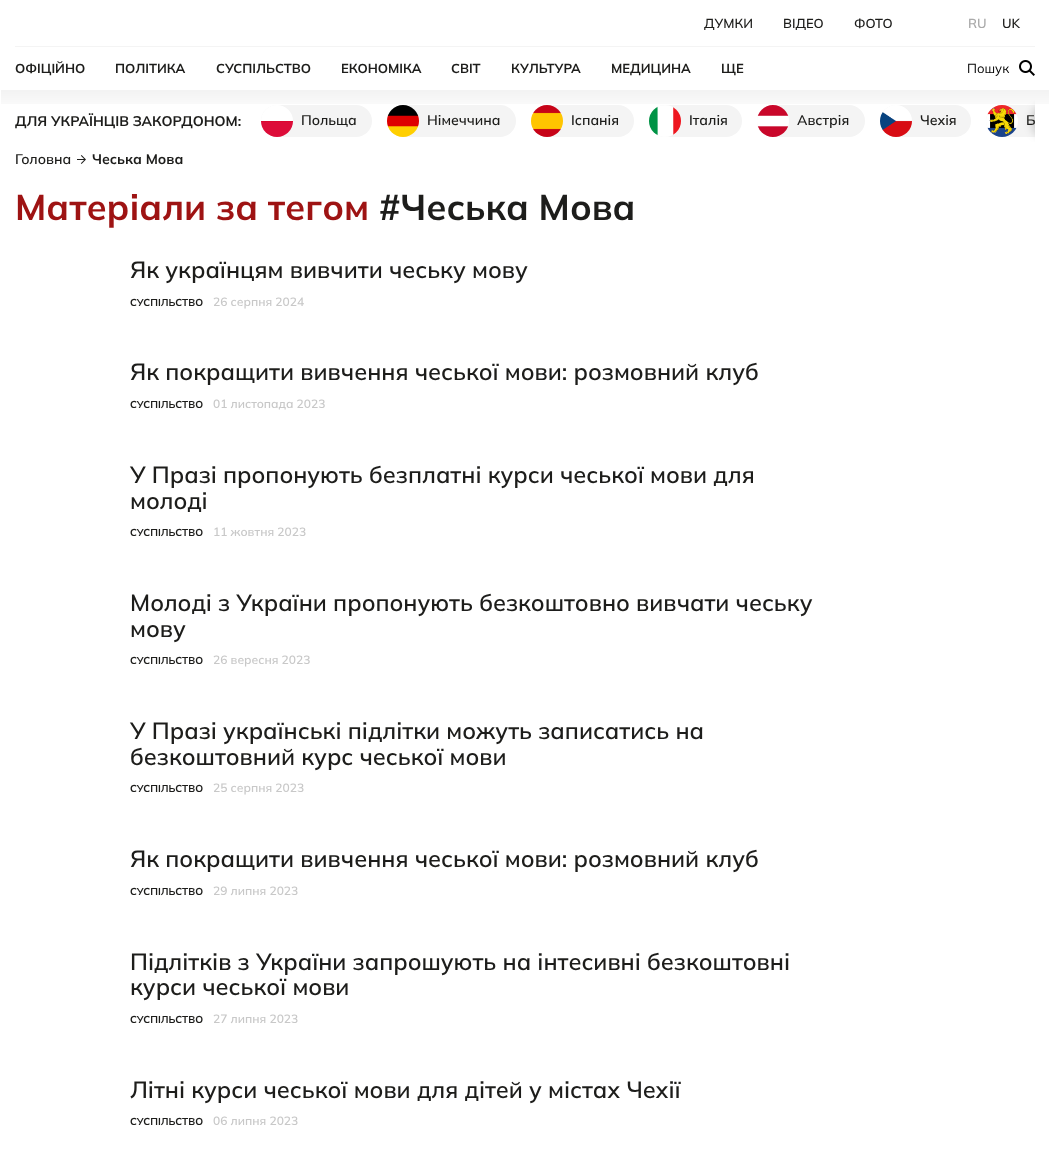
<svg xmlns="http://www.w3.org/2000/svg" width="1050" height="1159" viewBox="0 0 1050 1159">
  <defs>
    <clipPath id="clip1"><rect x="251" y="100" width="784" height="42"/></clipPath>
    <linearGradient id="g1" gradientUnits="userSpaceOnUse" x1="525" y1="90" x2="525" y2="115"><stop offset="0" stop-color="rgb(0,0,0)" stop-opacity="0.05"/><stop offset="1" stop-color="rgb(0,0,0)" stop-opacity="0"/></linearGradient>
    <clipPath id="clip2"><rect x="251" y="100" width="784" height="42"/></clipPath>
  </defs>
  <rect width="100%" height="100%" fill="rgb(255,255,255)"/>
  <g font-family="Mulish" font-size="13" font-weight="600" fill="rgb(29,29,27)">
    <text x="704" y="28">ДУМКИ</text>
    <text x="783" y="28">ВІДЕО</text>
    <text x="854" y="28">ФОТО</text>
  </g>
  <g font-family="Mulish" font-size="13" font-weight="bold" fill="rgb(29,29,27)">
    <text x="15" y="73">ОФІЦІЙНО</text>
    <text x="115" y="73">ПОЛІТИКА</text>
    <text x="216" y="73">СУСПІЛЬСТВО</text>
    <text x="341" y="73">ЕКОНОМІКА</text>
    <text x="451" y="73">СВІТ</text>
    <text x="511" y="73">КУЛЬТУРА</text>
    <text x="611" y="73">МЕДИЦИНА</text>
    <text x="721" y="73">ЩЕ</text>
  </g>
  <text x="968" y="28" font-family="Mulish" font-size="13" font-weight="600" fill="rgb(170,170,170)">RU</text>
  <text x="1002" y="28" font-family="Mulish" font-size="13" font-weight="600" fill="rgb(29,29,27)">UK</text>
  <rect x="15" y="46" width="1020" height="1" fill="rgb(244,244,244)"/>
  <text x="967" y="73" font-family="Mulish" font-size="13" fill="rgb(0,0,0)">Пошук</text>
  <image x="1019" y="60" width="16" height="16" href="pic1.png"/>
  <path d="M1002 105H1035V137H1002C993 137 986 130 986 121C986 112 993 105 1002 105Z" fill="rgb(244,244,244)"/>
  <image x="986" y="105" width="32" height="32" href="pic8.png"/>
  <g clip-path="url(#clip1)">
    <rect x="1032" y="103" width="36" height="36" rx="18" fill="rgba(0,0,0,0.2)" filter="blur(5px)"/>
  </g>
  <rect x="1" y="90" width="1048" height="14" fill="url(#g1)"/>
  <text x="15" y="126" font-family="Mulish" font-size="14" font-weight="bold" fill="rgb(29,29,27)">ДЛЯ УКРАЇНЦІВ ЗАКОРДОНОМ:</text>
  <rect x="261" y="105" width="111" height="32" rx="16" fill="rgb(244,244,244)"/>
  <image x="261" y="105" width="32" height="32" href="pic2.png"/>
  <text x="301" y="125" font-family="Mulish" font-size="14" font-weight="600" fill="rgb(29,29,27)">Польща</text>
  <rect x="387" y="105" width="129" height="32" rx="16" fill="rgb(244,244,244)"/>
  <image x="387" y="105" width="32" height="32" href="pic3.png"/>
  <text x="427" y="125" font-family="Mulish" font-size="14" font-weight="600" fill="rgb(29,29,27)">Німеччина</text>
  <rect x="531" y="105" width="103" height="32" rx="16" fill="rgb(244,244,244)"/>
  <image x="531" y="105" width="32" height="32" href="pic4.png"/>
  <text x="571" y="125" font-family="Mulish" font-size="14" font-weight="600" fill="rgb(29,29,27)">Іспанія</text>
  <rect x="649" y="105" width="93" height="32" rx="16" fill="rgb(244,244,244)"/>
  <image x="649" y="105" width="32" height="32" href="pic5.png"/>
  <text x="689" y="125" font-family="Mulish" font-size="14" font-weight="600" fill="rgb(29,29,27)">Італія</text>
  <rect x="757" y="105" width="108" height="32" rx="16" fill="rgb(244,244,244)"/>
  <image x="757" y="105" width="32" height="32" href="pic6.png"/>
  <text x="797" y="125" font-family="Mulish" font-size="14" font-weight="600" fill="rgb(29,29,27)">Австрія</text>
  <rect x="880" y="105" width="91" height="32" rx="16" fill="rgb(244,244,244)"/>
  <image x="880" y="105" width="32" height="32" href="pic7.png"/>
  <text x="920" y="125" font-family="Mulish" font-size="14" font-weight="600" fill="rgb(29,29,27)">Чехія</text>
  <g clip-path="url(#clip2)">
    <text x="1026" y="125" font-family="Mulish" font-size="14" font-weight="600" fill="rgb(29,29,27)">Б</text>
  </g>
  <text x="15" y="164" font-family="Mulish" font-size="14" font-weight="600" fill="rgb(29,29,27)">Головна</text>
  <image x="77" y="155" width="9" height="9" href="pic9.png"/>
  <text x="92" y="164" font-family="Mulish" font-size="14" font-weight="bold" fill="rgb(29,29,27)">Чеська Мова</text>
  <text x="15" y="220" font-family="Mulish" font-size="36" font-weight="bold" fill="rgb(158,19,19)">Матеріали за тегом</text>
  <text x="379" y="220" font-family="Mulish" font-size="36" font-weight="bold" fill="rgb(29,29,27)">#Чеська Мова</text>
  <text x="130" y="278" font-family="Mulish" font-size="23.3" font-weight="600" fill="rgb(29,29,27)">Як українцям вивчити чеську мову</text>
  <text x="130" y="306" font-family="Mulish" font-size="10" font-weight="bold" fill="rgb(29,29,27)">СУСПІЛЬСТВО</text>
  <text x="213" y="306" font-family="Mulish" font-size="12" font-weight="600" fill="rgb(200,200,200)">26 серпня 2024</text>
  <text x="130" y="380" font-family="Mulish" font-size="23.3" font-weight="600" fill="rgb(29,29,27)">Як покращити вивчення чеської мови: розмовний клуб</text>
  <text x="130" y="408" font-family="Mulish" font-size="10" font-weight="bold" fill="rgb(29,29,27)">СУСПІЛЬСТВО</text>
  <text x="213" y="408" font-family="Mulish" font-size="12" font-weight="600" fill="rgb(200,200,200)">01 листопада 2023</text>
  <g font-family="Mulish" font-size="23.3" font-weight="600" fill="rgb(29,29,27)">
    <text>
      <tspan x="130" y="483">У Празі пропонують безплатні курси чеської мови для</tspan>
      <tspan x="130" y="509">молоді</tspan>
    </text>
  </g>
  <text x="130" y="536" font-family="Mulish" font-size="10" font-weight="bold" fill="rgb(29,29,27)">СУСПІЛЬСТВО</text>
  <text x="213" y="536" font-family="Mulish" font-size="12" font-weight="600" fill="rgb(200,200,200)">11 жовтня 2023</text>
  <g font-family="Mulish" font-size="23.3" font-weight="600" fill="rgb(29,29,27)">
    <text>
      <tspan x="130" y="611">Молоді з України пропонують безкоштовно вивчати чеську</tspan>
      <tspan x="130" y="637">мову</tspan>
    </text>
  </g>
  <text x="130" y="664" font-family="Mulish" font-size="10" font-weight="bold" fill="rgb(29,29,27)">СУСПІЛЬСТВО</text>
  <text x="213" y="664" font-family="Mulish" font-size="12" font-weight="600" fill="rgb(200,200,200)">26 вересня 2023</text>
  <g font-family="Mulish" font-size="23.3" font-weight="600" fill="rgb(29,29,27)">
    <text>
      <tspan x="130" y="739">У Празі українські підлітки можуть записатись на</tspan>
      <tspan x="130" y="765">безкоштовний курс чеської мови</tspan>
    </text>
  </g>
  <text x="130" y="792" font-family="Mulish" font-size="10" font-weight="bold" fill="rgb(29,29,27)">СУСПІЛЬСТВО</text>
  <text x="213" y="792" font-family="Mulish" font-size="12" font-weight="600" fill="rgb(200,200,200)">25 серпня 2023</text>
  <text x="130" y="867" font-family="Mulish" font-size="23.3" font-weight="600" fill="rgb(29,29,27)">Як покращити вивчення чеської мови: розмовний клуб</text>
  <text x="130" y="895" font-family="Mulish" font-size="10" font-weight="bold" fill="rgb(29,29,27)">СУСПІЛЬСТВО</text>
  <text x="213" y="895" font-family="Mulish" font-size="12" font-weight="600" fill="rgb(200,200,200)">29 липня 2023</text>
  <g font-family="Mulish" font-size="23.3" font-weight="600" fill="rgb(29,29,27)">
    <text>
      <tspan x="130" y="970">Підлітків з України запрошують на інтесивні безкоштовні</tspan>
      <tspan x="130" y="995">курси чеської мови</tspan>
    </text>
  </g>
  <text x="130" y="1023" font-family="Mulish" font-size="10" font-weight="bold" fill="rgb(29,29,27)">СУСПІЛЬСТВО</text>
  <text x="213" y="1023" font-family="Mulish" font-size="12" font-weight="600" fill="rgb(200,200,200)">27 липня 2023</text>
  <text x="130" y="1098" font-family="Mulish" font-size="23.3" font-weight="600" fill="rgb(29,29,27)">Літні курси чеської мови для дітей у містах Чехії</text>
  <text x="130" y="1125" font-family="Mulish" font-size="10" font-weight="bold" fill="rgb(29,29,27)">СУСПІЛЬСТВО</text>
  <text x="213" y="1125" font-family="Mulish" font-size="12" font-weight="600" fill="rgb(200,200,200)">06 липня 2023</text>
</svg>
